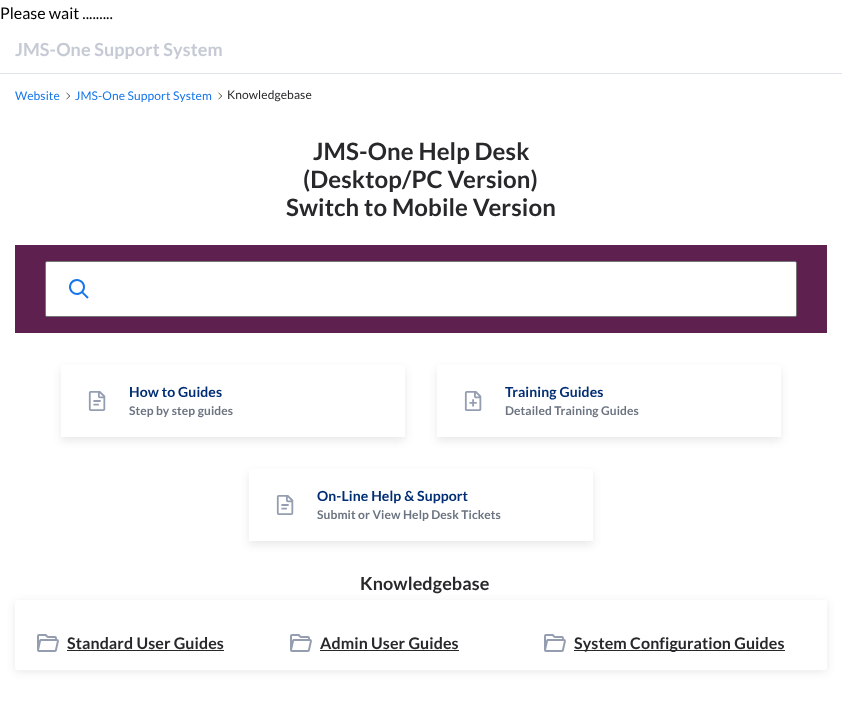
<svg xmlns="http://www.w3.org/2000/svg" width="842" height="713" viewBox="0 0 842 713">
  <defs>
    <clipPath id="clip1"><path d="M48 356H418V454H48ZM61 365H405V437H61Z" clip-rule="evenodd"/></clipPath>
    <clipPath id="clip2"><path d="M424 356H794V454H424ZM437 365H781V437H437Z" clip-rule="evenodd"/></clipPath>
    <clipPath id="clip3"><path d="M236 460H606V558H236ZM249 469H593V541H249Z" clip-rule="evenodd"/></clipPath>
    <clipPath id="clip4"><path d="M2 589H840V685H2ZM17 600H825C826 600 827 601 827 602V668C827 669 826 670 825 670H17C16 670 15 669 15 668V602C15 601 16 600 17 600Z" clip-rule="evenodd"/></clipPath>
  </defs>
  <rect width="100%" height="100%" fill="rgb(255,255,255)"/>
  <text x="0" y="19" font-family="Lato" font-size="16" fill="rgb(0,0,0)">Please wait .........</text>
  <rect x="0" y="73" width="842" height="1" fill="rgb(223,228,236)"/>
  <text x="15" y="56" font-family="Lato" font-size="18" font-weight="bold" letter-spacing="0.1" fill="rgb(197,202,212)">JMS-One Support System</text>
  <text x="15" y="100" font-family="Lato" font-size="12" letter-spacing="0.1" fill="rgb(23,118,234)">Website</text>
  <image x="66" y="92" width="4" height="8" href="pic1.png"/>
  <text x="75" y="100" font-family="Lato" font-size="12" letter-spacing="0.1" fill="rgb(23,118,234)">JMS-One Support System</text>
  <image x="218" y="92" width="4" height="8" href="pic1.png"/>
  <text x="227" y="99" font-family="Lato" font-size="12" letter-spacing="0.1" fill="rgb(38,40,42)">Knowledgebase</text>
  <g font-family="Lato" font-size="24" font-weight="bold" letter-spacing="0.1" fill="rgb(38,40,42)">
    <text x="313" y="160">JMS-One Help Desk</text>
    <text x="303" y="188">(Desktop/PC Version)</text>
    <text x="286" y="216">Switch to Mobile Version</text>
  </g>
  <rect x="15" y="245" width="812" height="88" fill="rgb(93,32,79)"/>
  <rect x="45.5" y="261.5" width="751" height="55" rx="1.5" fill="rgb(255,255,255)" stroke="rgb(118,118,118)"/>
  <image x="69" y="279" width="20" height="20" href="pic2.png"/>
  <g clip-path="url(#clip1)">
    <rect x="61" y="369" width="344" height="72" fill="rgba(38,40,42,0.1)" filter="blur(4px)"/>
  </g>
  <image x="88" y="391" width="18" height="20" href="pic3.png"/>
  <text x="129" y="397" font-family="Lato" font-size="14" font-weight="bold" letter-spacing="0.1" fill="rgb(0,45,115)">How to Guides</text>
  <text x="129" y="415" font-family="Lato" font-size="12" font-weight="bold" letter-spacing="0.1" fill="rgb(107,116,128)">Step by step guides</text>
  <g clip-path="url(#clip2)">
    <rect x="437" y="369" width="344" height="72" fill="rgba(38,40,42,0.1)" filter="blur(4px)"/>
  </g>
  <image x="464" y="391" width="18" height="20" href="pic4.png"/>
  <text x="505" y="397" font-family="Lato" font-size="14" font-weight="bold" letter-spacing="0.1" fill="rgb(0,45,115)">Training Guides</text>
  <text x="505" y="415" font-family="Lato" font-size="12" font-weight="bold" letter-spacing="0.1" fill="rgb(107,116,128)">Detailed Training Guides</text>
  <g clip-path="url(#clip3)">
    <rect x="249" y="473" width="344" height="72" fill="rgba(38,40,42,0.1)" filter="blur(4px)"/>
  </g>
  <image x="276" y="495" width="18" height="20" href="pic3.png"/>
  <text x="317" y="501" font-family="Lato" font-size="14" font-weight="bold" letter-spacing="0.1" fill="rgb(0,45,115)">On-Line Help &amp; Support</text>
  <text x="317" y="519" font-family="Lato" font-size="12" font-weight="bold" letter-spacing="0.1" fill="rgb(107,116,128)">Submit or View Help Desk Tickets</text>
  <g clip-path="url(#clip4)">
    <rect x="15" y="602" width="812" height="70" rx="2" fill="rgba(38,40,42,0.1)" filter="blur(4px)"/>
  </g>
  <text x="360" y="590" font-family="Lato" font-size="18" font-weight="bold" letter-spacing="0.1" fill="rgb(38,40,42)">Knowledgebase</text>
  <image x="37" y="634" width="22" height="18" href="pic5.png"/>
  <text x="67" y="649" font-family="Lato" font-size="16" font-weight="bold" letter-spacing="0.1" fill="rgb(38,40,42)">Standard User Guides</text>
  <rect x="67" y="650" width="157" height="1" fill="rgb(38,40,42)"/>
  <image x="290" y="634" width="22" height="18" href="pic5.png"/>
  <text x="320" y="649" font-family="Lato" font-size="16" font-weight="bold" letter-spacing="0.1" fill="rgb(38,40,42)">Admin User Guides</text>
  <rect x="320" y="650" width="139" height="1" fill="rgb(38,40,42)"/>
  <image x="544" y="634" width="22" height="18" href="pic5.png"/>
  <rect x="574" y="650" width="211" height="1" fill="rgb(38,40,42)"/>
  <text x="574" y="649" font-family="Lato" font-size="16" font-weight="bold" letter-spacing="0.1" fill="rgb(38,40,42)">System Configuration Guides</text>
</svg>
